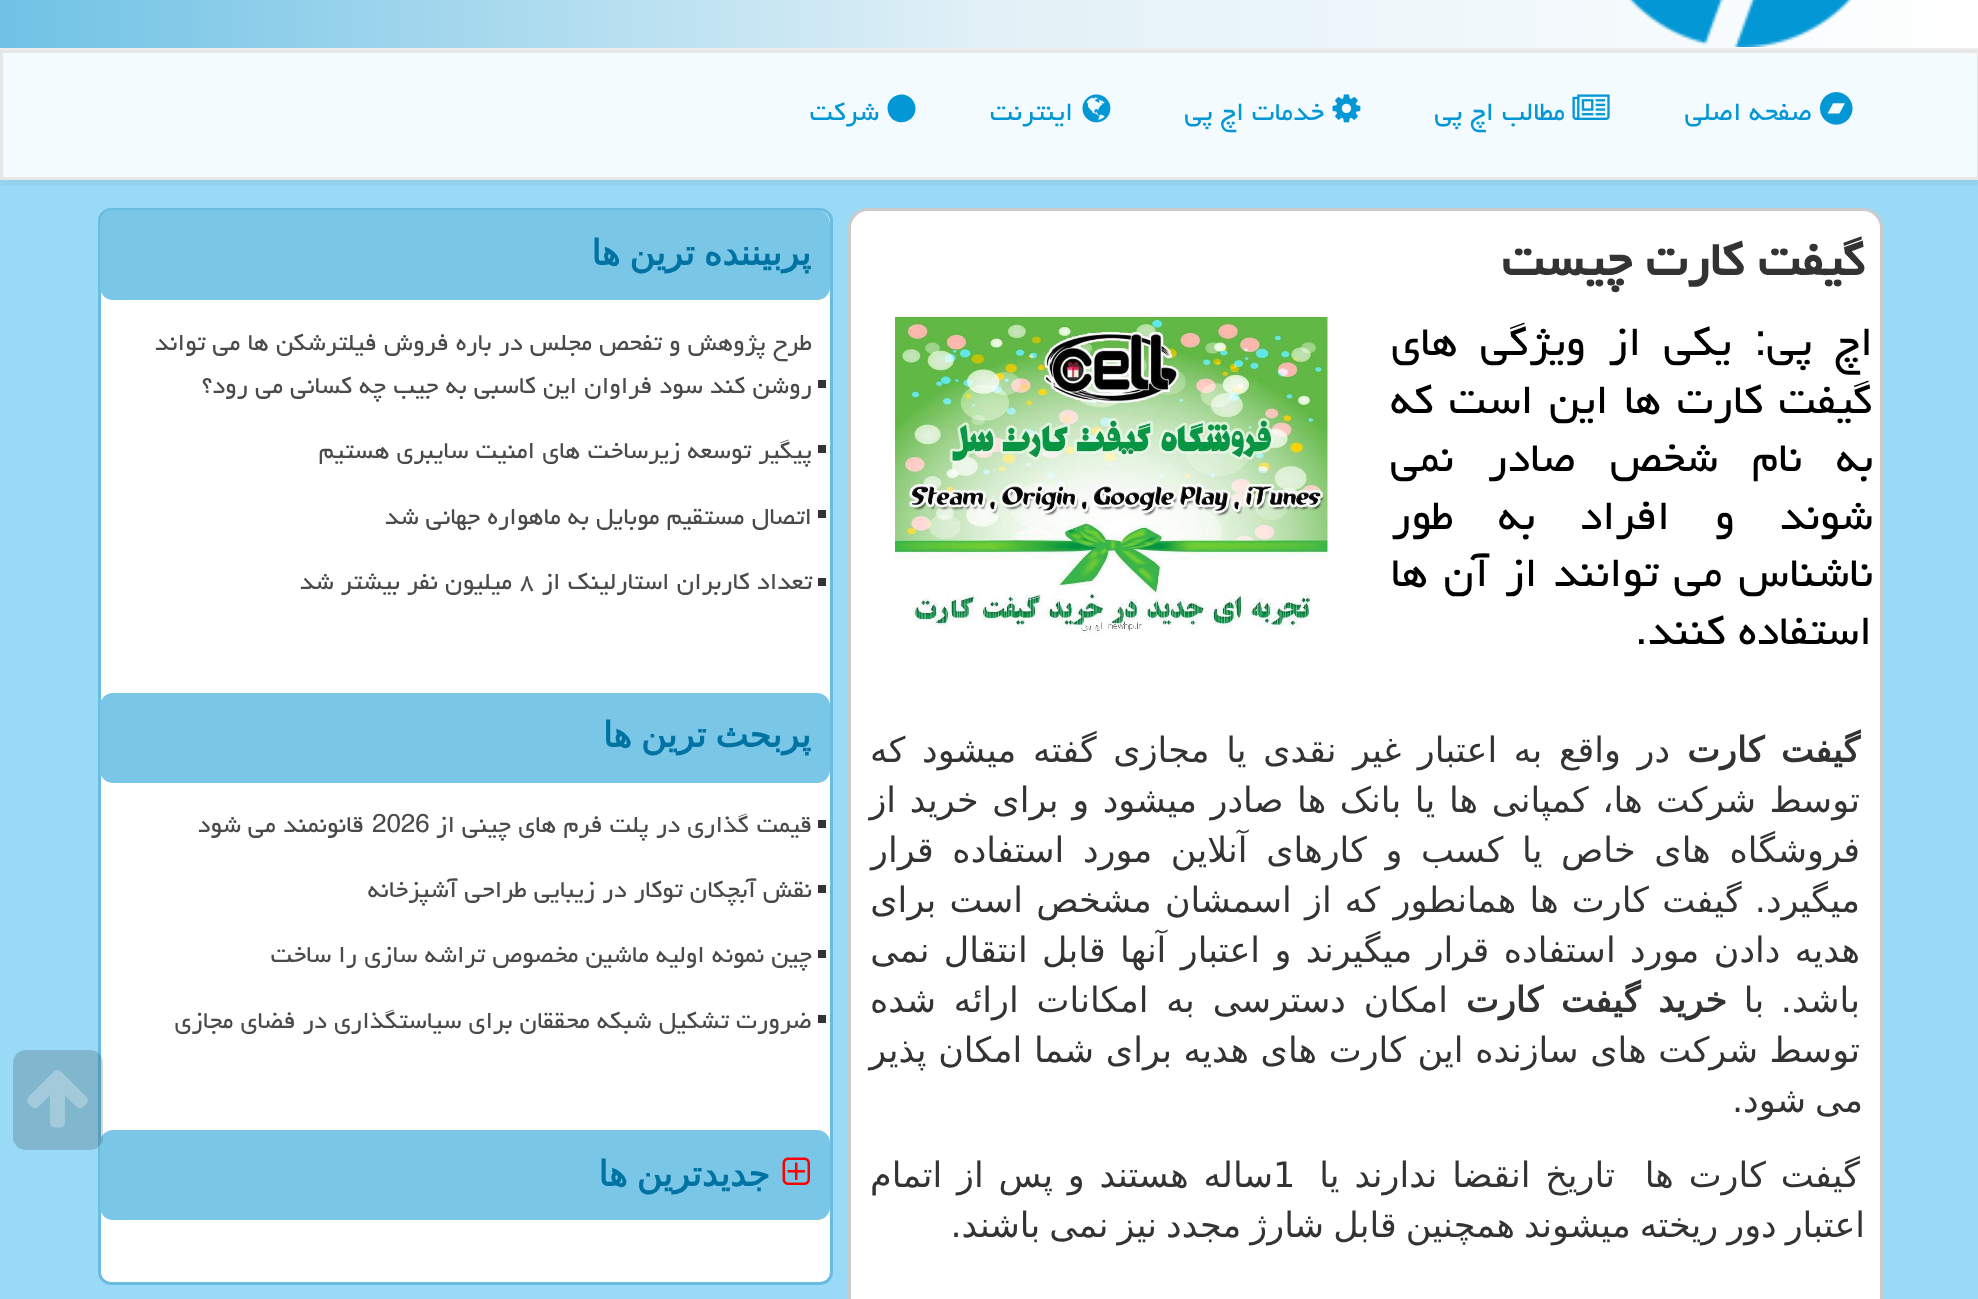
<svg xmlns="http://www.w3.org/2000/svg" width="1978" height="1299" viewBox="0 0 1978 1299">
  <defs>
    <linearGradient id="g1" gradientUnits="userSpaceOnUse" x1="0" y1="-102" x2="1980" y2="-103"><stop offset="0" stop-color="rgb(111,194,229)"/><stop offset="0.5" stop-color="rgb(226,241,247)"/><stop offset="1" stop-color="rgb(255,255,255)"/></linearGradient>
    <clipPath id="clip1"><rect x="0" y="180" width="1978" height="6"/></clipPath>
  </defs>
  <rect width="100%" height="100%" fill="rgb(153,218,246)"/>
  <rect x="3" y="56" width="1974" height="121" fill="rgb(243,251,254)"/>
  <rect x="0" y="0" width="1978" height="48" fill="url(#g1)"/>
  <rect x="0" y="48" width="1978" height="2" fill="rgb(238,238,238)"/>
  <image x="1629" y="0" width="223" height="47" href="pic1.png"/>
  <g clip-path="url(#clip1)">
    <rect x="0" y="53" width="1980" height="130" fill="rgba(0,0,0,0.07)" filter="blur(6px)"/>
  </g>
  <rect x="3" y="53" width="1975" height="3" fill="rgb(245,251,254)"/>
  <rect x="1.5" y="51.5" width="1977" height="127" fill="none" stroke="rgb(231,231,231)" stroke-width="3"/>
  <image x="1820" y="92" width="33" height="33" href="pic2.png"/>
  <text x="1812" y="120" font-family="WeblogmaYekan" font-size="32.5" direction="rtl" fill="rgb(3,151,214)">صفحه اصلی</text>
  <image x="1572" y="94" width="38" height="26" href="pic3.png"/>
  <text x="1565" y="120" font-family="WeblogmaYekan" font-size="32.5" direction="rtl" fill="rgb(3,151,214)">مطالب اچ پی</text>
  <image x="1332" y="94" width="29" height="29" href="pic4.png"/>
  <text x="1324" y="120" font-family="WeblogmaYekan" font-size="32.5" direction="rtl" fill="rgb(3,151,214)">خدمات اچ پی</text>
  <image x="1082" y="94" width="29" height="29" href="pic5.png"/>
  <text x="1073" y="120" font-family="WeblogmaYekan" font-size="32.5" direction="rtl" fill="rgb(3,151,214)">اینترنت</text>
  <path d="M913.5 101.5C915 104 915.5 106.5 915.5 109.5C914.5 123 896 127 889.5 115.5C888 113 887.5 110 887.5 107.5C888.5 94 906.5 89.5 913.5 101.5Z" fill="rgb(3,151,214)"/>
  <text x="879" y="120" font-family="WeblogmaYekan" font-size="32.5" direction="rtl" fill="rgb(3,151,214)">شرکت</text>
  <rect x="849.5" y="209.5" width="1032" height="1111" rx="18.5" fill="rgb(255,255,255)" stroke="rgb(203,203,203)" stroke-width="3"/>
  <text x="1865" y="275" font-family="WeblogmaYekan" font-size="59.5" font-weight="bold" direction="rtl" fill="rgb(51,51,51)">گیفت كارت چیست</text>
  <text x="1873" y="355" word-spacing="10" font-family="WeblogmaYekan" font-size="52.5" direction="rtl" fill="rgb(0,0,0)">اچ پی: یكی از ویژگی های</text>
  <image x="895" y="317" width="433" height="316" href="pic6.png"/>
  <g font-family="WeblogmaYekan" font-size="52.5" direction="rtl" fill="rgb(0,0,0)">
    <text>
      <tspan x="1873" y="413" word-spacing="2.75">گیفت كارت ها این است كه</tspan>
      <tspan x="1873" y="471" word-spacing="21.5">به نام شخص صادر نمی</tspan>
      <tspan x="1873" y="529" word-spacing="32">شوند و افراد به طور</tspan>
      <tspan x="1873" y="586" word-spacing="3">ناشناس می توانند از آن ها</tspan>
    </text>
    <text x="1872" y="644">استفاده كنند.</text>
  </g>
  <text x="1860" y="762" word-spacing="5.5" font-family="DejaVu Sans" font-size="35" font-weight="bold" direction="rtl" fill="rgb(51,51,51)">گیفت کارت</text>
  <g font-family="DejaVu Sans" font-size="35" direction="rtl" fill="rgb(51,51,51)">
    <text x="1670" y="762" word-spacing="5.5">در واقع به اعتبار غیر نقدی یا مجازی گفته میشود که</text>
    <text>
      <tspan x="1860" y="812" word-spacing="2.5">توسط شرکت ها، کمپانی ها یا بانک ها صادر میشود و برای خرید از</tspan>
      <tspan x="1860" y="862" word-spacing="7.5">فروشگاه های خاص یا کسب و کارهای آنلاین مورد استفاده قرار</tspan>
      <tspan x="1860" y="912" word-spacing="2.1">میگیرد. گیفت کارت ها همانطور که از اسمشان مشخص است برای</tspan>
      <tspan x="1860" y="962" word-spacing="3.25">هدیه دادن مورد استفاده قرار میگیرند و اعتبار آنها قابل انتقال نمی</tspan>
      <tspan x="1860" y="1012" word-spacing="5.5">باشد. با</tspan>
    </text>
  </g>
  <text x="1727" y="1012" word-spacing="6.75" font-family="DejaVu Sans" font-size="35" font-weight="bold" direction="rtl" fill="rgb(51,51,51)">خرید گیفت کارت</text>
  <g font-family="DejaVu Sans" font-size="35" direction="rtl" fill="rgb(51,51,51)">
    <text x="1448" y="1012" word-spacing="6.75">امکان دسترسی به امکانات ارائه شده</text>
    <text x="1860" y="1062" word-spacing="0.5">توسط شرکت های سازنده این کارت های هدیه برای شما امکان پذیر</text>
    <text x="1863" y="1112" word-spacing="-2.1">می شود.</text>
    <text x="1860" y="1187" word-spacing="3.75" xml:space="preserve">گیفت کارت ها  تاریخ انقضا ندارند یا</text>
  </g>
  <text x="1273" y="1187" font-family="DejaVu Sans" font-size="35" fill="rgb(51,51,51)">1</text>
  <g font-family="DejaVu Sans" font-size="35" direction="rtl" fill="rgb(51,51,51)">
    <text x="1273" y="1187" word-spacing="3.75">ساله هستند و پس از اتمام</text>
    <text x="1865" y="1237" word-spacing="-2.1">اعتبار دور ریخته میشوند همچنین قابل شارژ مجدد نیز نمی باشند.</text>
  </g>
  <rect x="99.5" y="209.5" width="732" height="1074" rx="11.5" fill="rgb(255,255,255)" stroke="rgb(106,189,225)" stroke-width="3"/>
  <rect x="100" y="210" width="730" height="90" rx="13" fill="rgb(122,198,231)"/>
  <text x="811" y="265" word-spacing="-2.1" font-family="DejaVu Sans" font-size="35" font-weight="bold" direction="rtl" fill="rgb(0,115,163)">پربیننده ترین ها</text>
  <rect x="818" y="380" width="8" height="8" fill="rgb(51,51,51)"/>
  <g font-family="WeblogmaYekan" font-size="30" direction="rtl" fill="rgb(74,74,74)">
    <text>
      <tspan x="812" y="350">طرح پژوهش و تفحص مجلس در باره فروش فیلترشکن ها می تواند</tspan>
      <tspan x="812" y="393">روشن کند سود فراوان این کاسبی به جیب چه کسانی می رود؟</tspan>
    </text>
  </g>
  <rect x="818" y="445" width="8" height="8" fill="rgb(51,51,51)"/>
  <text x="812" y="458" font-family="WeblogmaYekan" font-size="30" direction="rtl" fill="rgb(74,74,74)">پیگیر توسعه زیرساخت های امنیت سایبری هستیم</text>
  <rect x="818" y="510" width="8" height="8" fill="rgb(51,51,51)"/>
  <text x="812" y="524" font-family="WeblogmaYekan" font-size="30" direction="rtl" fill="rgb(74,74,74)">اتصال مستقیم موبایل به ماهواره جهانی شد</text>
  <rect x="818" y="578" width="8" height="8" fill="rgb(51,51,51)"/>
  <text x="812" y="589" font-family="WeblogmaYekan" font-size="30" direction="rtl" fill="rgb(74,74,74)">تعداد کاربران استارلینک از</text>
  <text x="519" y="589" font-family="WeblogmaYekan" font-size="30" fill="rgb(74,74,74)">۸</text>
  <text x="512" y="589" font-family="WeblogmaYekan" font-size="30" direction="rtl" fill="rgb(74,74,74)">میلیون نفر بیشتر شد</text>
  <rect x="100" y="693" width="730" height="90" rx="13" fill="rgb(122,198,231)"/>
  <text x="811" y="747" word-spacing="-2.1" font-family="DejaVu Sans" font-size="35" font-weight="bold" direction="rtl" fill="rgb(0,115,163)">پربحث ترین ها</text>
  <rect x="818" y="820" width="8" height="8" fill="rgb(51,51,51)"/>
  <text x="812" y="832" font-family="WeblogmaYekan" font-size="30" direction="rtl" fill="rgb(74,74,74)">قیمت گذاری در پلت فرم های چینی از</text>
  <text x="372" y="832" font-family="WeblogmaYekan" font-size="30" fill="rgb(74,74,74)">2026</text>
  <text x="364" y="832" font-family="WeblogmaYekan" font-size="30" direction="rtl" fill="rgb(74,74,74)">قانونمند می شود</text>
  <rect x="818" y="885" width="8" height="8" fill="rgb(51,51,51)"/>
  <text x="812" y="897" font-family="WeblogmaYekan" font-size="30" direction="rtl" fill="rgb(74,74,74)">نقش آبچکان توکار در زیبایی طراحی آشپزخانه</text>
  <rect x="818" y="950" width="8" height="8" fill="rgb(51,51,51)"/>
  <text x="812" y="962" font-family="WeblogmaYekan" font-size="30" direction="rtl" fill="rgb(74,74,74)">چین نمونه اولیه ماشین مخصوص تراشه سازی را ساخت</text>
  <rect x="818" y="1015" width="8" height="8" fill="rgb(51,51,51)"/>
  <text x="812" y="1028" font-family="WeblogmaYekan" font-size="30" direction="rtl" fill="rgb(74,74,74)">ضرورت تشکیل شبکه محققان برای سیاستگذاری در فضای مجازی</text>
  <rect x="100" y="1130" width="730" height="90" rx="13" fill="rgb(122,198,231)"/>
  <image x="782" y="1157" width="28" height="28" href="pic7.png"/>
  <text x="770" y="1186" word-spacing="-2.1" font-family="DejaVu Sans" font-size="35" font-weight="bold" direction="rtl" fill="rgb(0,115,163)">جدیدترین ها</text>
  <rect x="13" y="1050" width="90" height="100" rx="13" fill="rgba(0,0,0,0.16)"/>
  <image x="27" y="1070" width="61" height="58" href="pic8.png"/>
</svg>
